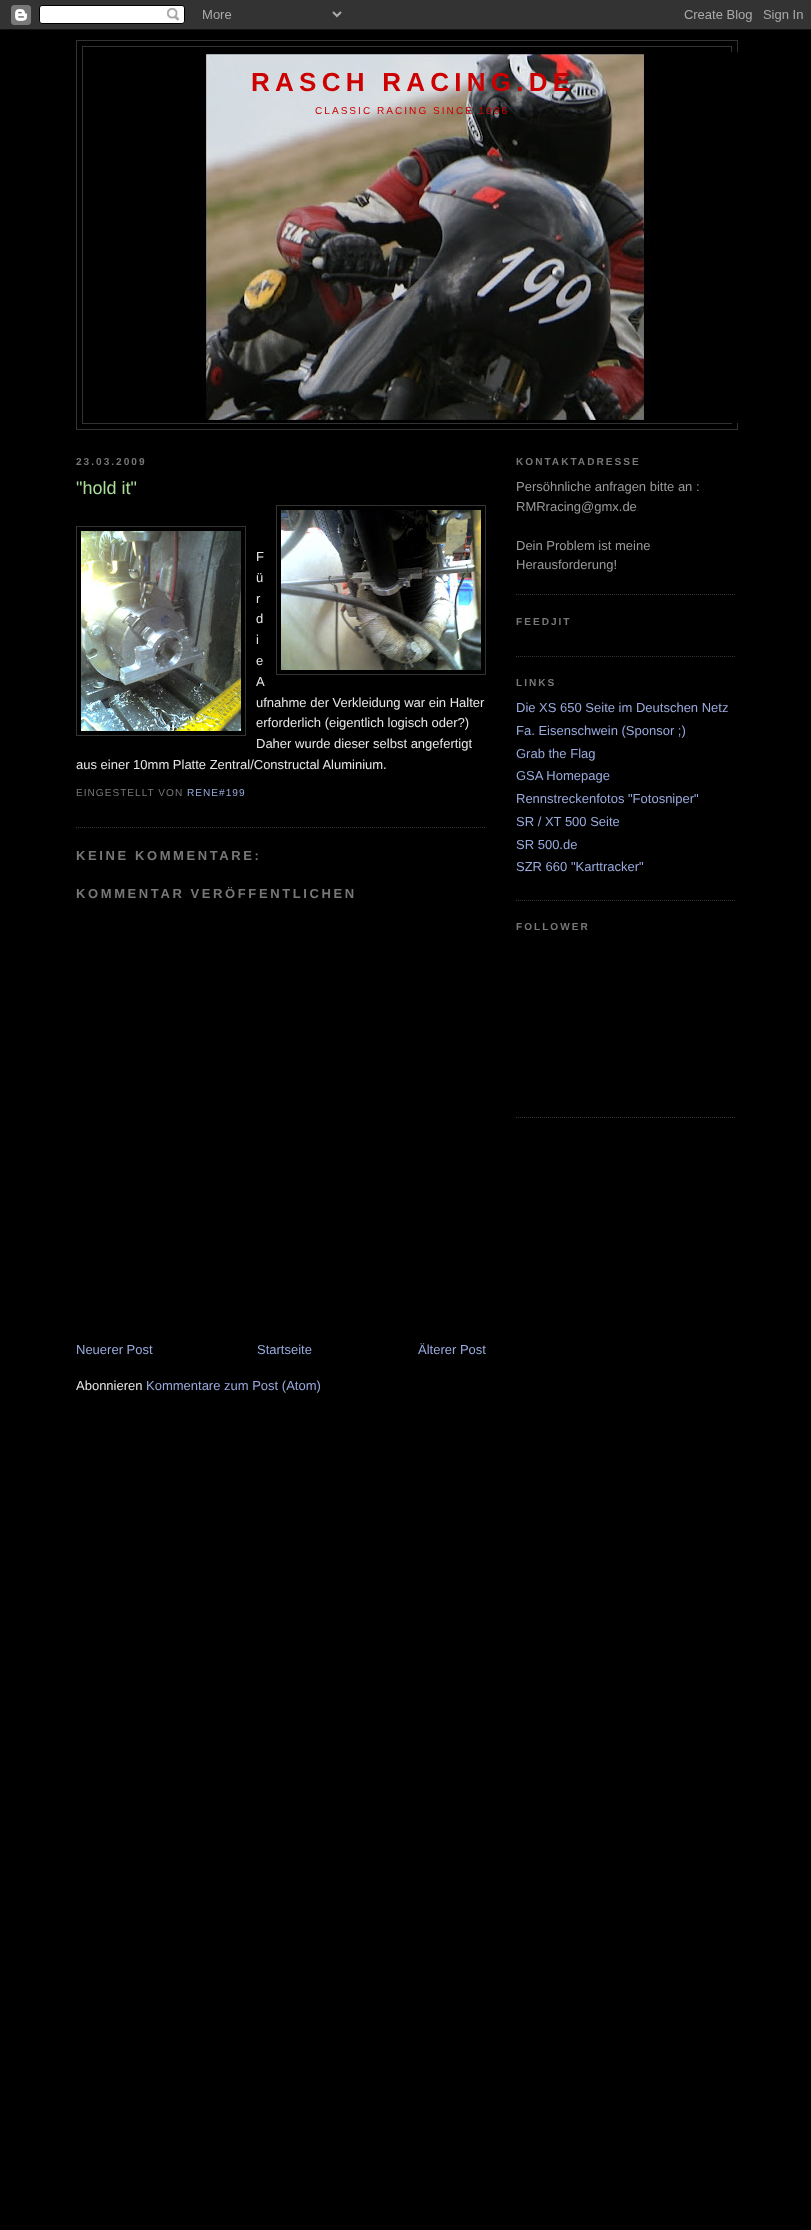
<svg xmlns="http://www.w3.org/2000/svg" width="811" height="2230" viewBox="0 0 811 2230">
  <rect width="100%" height="100%" fill="rgb(0,0,0)"/>
  <image x="0" y="0" width="811" height="30" href="pic1.png"/>
  <rect x="76.5" y="40.5" width="661" height="389" fill="none" stroke="rgb(51,51,51)"/>
  <rect x="82.5" y="46.5" width="649" height="377" fill="none" stroke="rgb(51,51,51)"/>
  <image x="203" y="52" width="535" height="371" href="pic2.png"/>
  <text x="251" y="91" font-family="Liberation Sans" font-size="26" font-weight="bold" letter-spacing="5.25" fill="rgb(204,0,0)">RASCH RACING.DE</text>
  <text x="315" y="114" font-family="Liberation Sans" font-size="10.1" letter-spacing="2" fill="rgb(204,0,0)">CLASSIC RACING SINCE 1996</text>
  <text x="76" y="465" font-family="Liberation Sans" font-size="10.1" font-weight="bold" letter-spacing="2" fill="rgb(119,119,119)">23.03.2009</text>
  <path d="M76 827.5H486" fill="none" stroke="rgb(51,51,51)" stroke-dasharray="1 1"/>
  <text x="76" y="494" font-family="Liberation Sans" font-size="18" fill="rgb(170,221,153)">"hold it"</text>
  <rect x="76.5" y="526.5" width="169" height="209" fill="none" stroke="rgb(51,51,51)"/>
  <image x="81" y="531" width="160" height="200" href="pic3.png"/>
  <text x="256" y="561" font-family="Liberation Sans" font-size="13" fill="rgb(230,230,230)">F</text>
  <rect x="276.5" y="505.5" width="209" height="169" fill="none" stroke="rgb(51,51,51)"/>
  <image x="281" y="510" width="200" height="160" href="pic4.png"/>
  <g font-family="Liberation Sans" font-size="13" fill="rgb(230,230,230)">
    <text>
      <tspan x="256" y="582">ü</tspan>
      <tspan x="256" y="603">r</tspan>
      <tspan x="256" y="623">d</tspan>
      <tspan x="256" y="644">i</tspan>
      <tspan x="256" y="665">e</tspan>
      <tspan x="256" y="686">A</tspan>
      <tspan x="256" y="707">ufnahme der Verkleidung war ein Halter</tspan>
      <tspan x="256" y="727">erforderlich (eigentlich logisch oder?)</tspan>
      <tspan x="256" y="748">Daher wurde dieser selbst angefertigt</tspan>
    </text>
    <text x="76" y="769">aus einer 10mm Platte Zentral/Constructal Aluminium.</text>
  </g>
  <text x="76" y="796" font-family="Liberation Sans" font-size="10.1" letter-spacing="1" fill="rgb(119,119,119)">EINGESTELLT VON</text>
  <text x="187" y="796" font-family="Liberation Sans" font-size="10.1" letter-spacing="1" fill="rgb(153,170,221)">RENE#199</text>
  <g font-family="Liberation Sans" font-size="13" font-weight="bold" letter-spacing="2.6" fill="rgb(119,119,119)">
    <text x="76" y="860">KEINE KOMMENTARE:</text>
    <text x="76" y="898">KOMMENTAR VERÖFFENTLICHEN</text>
  </g>
  <g font-family="Liberation Sans" font-size="13" fill="rgb(153,170,221)">
    <text x="76" y="1354">Neuerer Post</text>
    <text x="257" y="1354">Startseite</text>
    <text x="418" y="1354">Älterer Post</text>
  </g>
  <text x="76" y="1390" font-family="Liberation Sans" font-size="13" fill="rgb(230,230,230)">Abonnieren</text>
  <text x="146" y="1390" font-family="Liberation Sans" font-size="13" fill="rgb(153,170,221)">Kommentare zum Post (Atom)</text>
  <path d="M516 594.5H736" fill="none" stroke="rgb(51,51,51)" stroke-dasharray="1 1"/>
  <text x="516" y="465" font-family="Liberation Sans" font-size="10.1" font-weight="bold" letter-spacing="2" fill="rgb(119,119,119)">KONTAKTADRESSE</text>
  <g font-family="Liberation Sans" font-size="13" fill="rgb(153,153,153)">
    <text>
      <tspan x="516" y="491">Persöhnliche anfragen bitte an :</tspan>
      <tspan x="516" y="511">RMRracing@gmx.de</tspan>
    </text>
    <text>
      <tspan x="516" y="550">Dein Problem ist meine</tspan>
      <tspan x="516" y="569">Herausforderung!</tspan>
    </text>
  </g>
  <path d="M516 656.5H736" fill="none" stroke="rgb(51,51,51)" stroke-dasharray="1 1"/>
  <text x="516" y="625" font-family="Liberation Sans" font-size="10.1" font-weight="bold" letter-spacing="2" fill="rgb(119,119,119)">FEEDJIT</text>
  <path d="M516 900.5H736" fill="none" stroke="rgb(51,51,51)" stroke-dasharray="1 1"/>
  <text x="516" y="686" font-family="Liberation Sans" font-size="10.1" font-weight="bold" letter-spacing="2" fill="rgb(119,119,119)">LINKS</text>
  <g font-family="Liberation Sans" font-size="13" fill="rgb(153,170,221)">
    <text>
      <tspan x="516" y="712">Die XS 650 Seite im Deutschen Netz</tspan>
      <tspan x="516" y="735">Fa. Eisenschwein (Sponsor ;)</tspan>
      <tspan x="516" y="758">Grab the Flag</tspan>
      <tspan x="516" y="780">GSA Homepage</tspan>
      <tspan x="516" y="803">Rennstreckenfotos "Fotosniper"</tspan>
      <tspan x="516" y="826">SR / XT 500 Seite</tspan>
      <tspan x="516" y="849">SR 500.de</tspan>
      <tspan x="516" y="871">SZR 660 "Karttracker"</tspan>
    </text>
  </g>
  <path d="M516 1117.5H736" fill="none" stroke="rgb(51,51,51)" stroke-dasharray="1 1"/>
  <text x="516" y="930" font-family="Liberation Sans" font-size="10.1" font-weight="bold" letter-spacing="2" fill="rgb(119,119,119)">FOLLOWER</text>
</svg>
